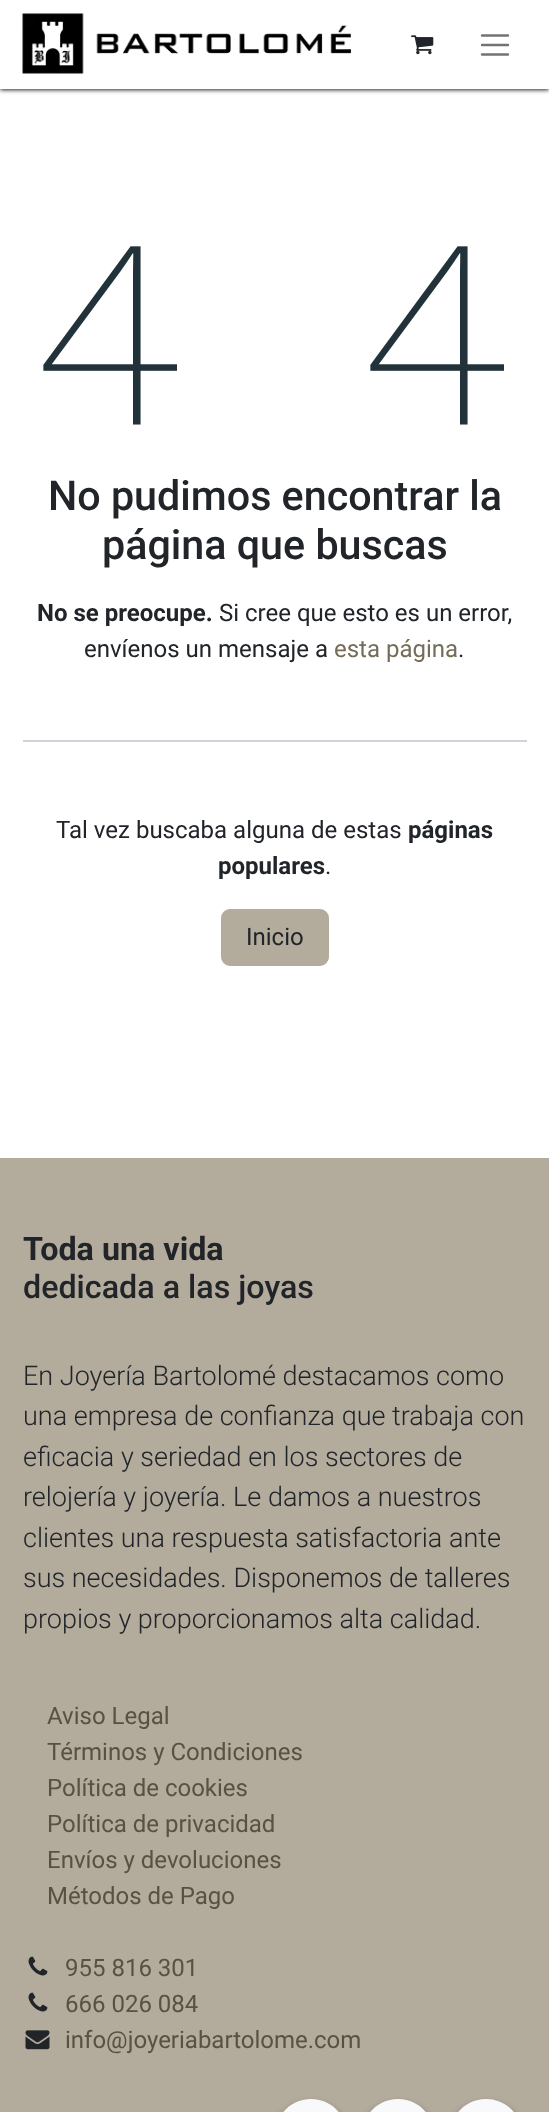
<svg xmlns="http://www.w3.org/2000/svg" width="549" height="2112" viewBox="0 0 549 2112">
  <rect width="100%" height="100%" fill="rgb(255,255,255)"/>
  <rect x="0" y="2" width="549" height="88" fill="rgb(33,37,41)" filter="blur(2px)"/>
  <rect x="0" y="0" width="549" height="89" fill="rgb(255,255,255)"/>
  <image x="22" y="13" width="329" height="61" href="pic1.png"/>
  <image x="411" y="35" width="23" height="20" href="pic2.png"/>
  <path d="M482 35.5H508M482 45H508M482 54.5H508" fill="none" stroke="rgb(115,115,115)" stroke-width="2.4" stroke-linecap="round"/>
  <image x="43" y="246" width="461" height="179" href="pic3.png"/>
  <g font-family="Roboto" font-size="41.25" font-weight="500" fill="rgb(33,37,41)">
    <text x="48" y="510">No pudimos encontrar la</text>
    <text x="102" y="559">página que buscas</text>
  </g>
  <text x="37" y="621" font-family="Roboto" font-size="24" font-weight="bold" fill="rgb(33,37,41)">No se preocupe.</text>
  <g font-family="Roboto" font-size="24" fill="rgb(33,37,41)">
    <text x="219" y="621">Si cree que esto es un error,</text>
    <text x="84" y="657">envíenos un mensaje a</text>
  </g>
  <text x="334" y="657" font-family="Roboto" font-size="24" fill="rgb(117,108,90)">esta página</text>
  <text x="458" y="657" font-family="Roboto" font-size="24" fill="rgb(33,37,41)">.</text>
  <rect x="23" y="740" width="504" height="2" fill="rgb(206,212,218)"/>
  <text x="56" y="838" font-family="Roboto" font-size="24" fill="rgb(33,37,41)">Tal vez buscaba alguna de estas</text>
  <g font-family="Roboto" font-size="24" font-weight="bold" fill="rgb(33,37,41)">
    <text x="408" y="838">páginas</text>
    <text x="218" y="874">populares</text>
  </g>
  <text x="325" y="874" font-family="Roboto" font-size="24" fill="rgb(33,37,41)">.</text>
  <rect x="222" y="910" width="106" height="55" rx="8" fill="rgb(179,171,156)" stroke="rgb(179,171,156)" stroke-width="2"/>
  <text x="246" y="945" font-family="Roboto" font-size="24" fill="rgb(33,37,41)">Inicio</text>
  <rect x="0" y="1158" width="549" height="954" fill="rgb(179,171,156)"/>
  <text x="23" y="1260" font-family="Roboto" font-size="32.25" font-weight="bold" fill="rgb(33,37,41)">Toda una vida</text>
  <text x="23" y="1298" font-family="Roboto" font-size="32.25" font-weight="500" fill="rgb(33,37,41)">dedicada a las joyas</text>
  <g font-family="Roboto" font-size="27" font-weight="300" fill="rgb(33,37,41)">
    <text>
      <tspan x="23" y="1385">En Joyería Bartolomé destacamos como</tspan>
      <tspan x="23" y="1425">una empresa de confianza que trabaja con</tspan>
      <tspan x="23" y="1466">eficacia y seriedad en los sectores de</tspan>
      <tspan x="23" y="1506">relojería y joyería. Le damos a nuestros</tspan>
      <tspan x="23" y="1547">clientes una respuesta satisfactoria ante</tspan>
      <tspan x="23" y="1587">sus necesidades. Disponemos de talleres</tspan>
      <tspan x="23" y="1628">propios y proporcionamos alta calidad.</tspan>
    </text>
  </g>
  <g font-family="Roboto" font-size="24" fill="rgb(89,82,68)">
    <text>
      <tspan x="47" y="1724">Aviso Legal</tspan>
      <tspan x="47" y="1760">Términos y Condiciones</tspan>
      <tspan x="47" y="1796">Política de cookies</tspan>
      <tspan x="47" y="1832">Política de privacidad</tspan>
      <tspan x="47" y="1868">Envíos y devoluciones</tspan>
      <tspan x="47" y="1904">Métodos de Pago</tspan>
    </text>
  </g>
  <image x="28" y="1956" width="20" height="20" href="pic4.png"/>
  <text x="65" y="1976" font-family="Roboto" font-size="24" fill="rgb(89,82,68)">955 816 301</text>
  <image x="28" y="1992" width="20" height="20" href="pic4.png"/>
  <text x="65" y="2012" font-family="Roboto" font-size="24" fill="rgb(89,82,68)">666 026 084</text>
  <image x="25" y="2030" width="25" height="20" href="pic5.png"/>
  <text x="65" y="2048" font-family="Roboto" font-size="24" fill="rgb(89,82,68)">info@joyeriabartolome.com</text>
  <rect x="275" y="2100" width="72" height="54" rx="36" fill="rgba(0,0,0,0.1)" filter="blur(2px)"/>
  <path d="M311 2099C331 2099 347 2115 347 2135V2112H275V2135C275 2115 291 2099 311 2099Z" fill="rgb(248,249,250)"/>
  <rect x="362" y="2100" width="72" height="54" rx="36" fill="rgba(0,0,0,0.1)" filter="blur(2px)"/>
  <path d="M398 2099C418 2099 434 2115 434 2135V2112H362V2135C362 2115 378 2099 398 2099Z" fill="rgb(248,249,250)"/>
  <rect x="450" y="2100" width="72" height="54" rx="36" fill="rgba(0,0,0,0.1)" filter="blur(2px)"/>
  <path d="M486 2099C506 2099 522 2115 522 2135V2112H450V2135C450 2115 466 2099 486 2099Z" fill="rgb(248,249,250)"/>
</svg>
